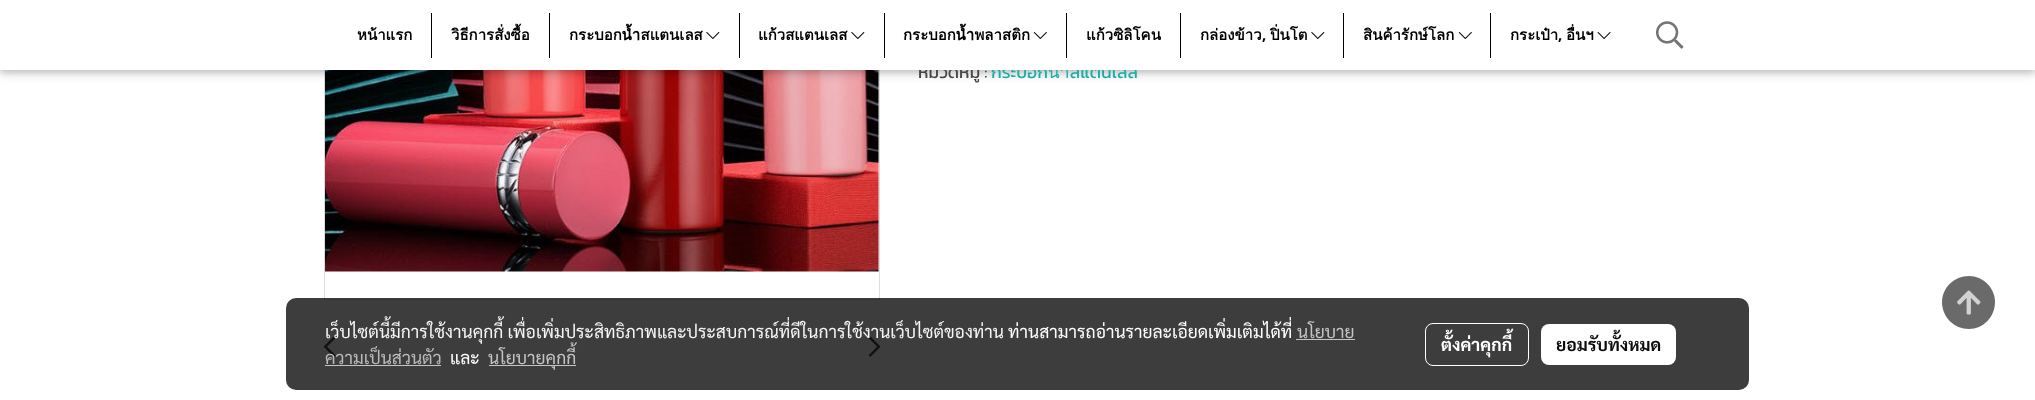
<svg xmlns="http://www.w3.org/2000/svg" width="2035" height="400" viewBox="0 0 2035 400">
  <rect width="100%" height="100%" fill="rgb(255,255,255)"/>
  <rect x="324.5" y="-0.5" width="555" height="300" fill="none" stroke="rgb(221,221,221)"/>
  <image x="325" y="70" width="554" height="202" href="pic5.png"/>
  <rect x="0" y="3" width="2035" height="70" fill="rgba(0,0,0,0.12)" filter="blur(6px)"/>
  <rect x="0" y="3" width="2035" height="70" fill="rgba(0,0,0,0.16)" filter="blur(3px)"/>
  <text x="918" y="78" font-family="Kanit" font-size="17.5" fill="rgb(70,70,70)">หมวดหมู่ :</text>
  <text x="991" y="78" font-family="Kanit" font-size="17.5" fill="rgb(26,174,169)">กระบอกน้ำสแตนเลส</text>
  <rect x="0" y="0" width="2035" height="70" fill="rgb(255,255,255)"/>
  <rect x="431" y="13" width="1" height="45" fill="rgb(0,0,0)"/>
  <text x="357" y="40" font-family="Loma" font-size="15" font-weight="bold" fill="rgb(0,0,0)">หน้าแรก</text>
  <rect x="549" y="13" width="1" height="45" fill="rgb(0,0,0)"/>
  <text x="451" y="40" font-family="Loma" font-size="15" font-weight="bold" fill="rgb(0,0,0)">วิธีการสั่งซื้อ</text>
  <rect x="739" y="13" width="1" height="45" fill="rgb(0,0,0)"/>
  <text x="569" y="40" font-family="Loma" font-size="15" font-weight="bold" fill="rgb(0,0,0)">กระบอกน้ำสแตนเลส</text>
  <image x="706" y="32" width="14" height="7" href="pic1.png"/>
  <rect x="884" y="13" width="1" height="45" fill="rgb(0,0,0)"/>
  <text x="758" y="40" font-family="Loma" font-size="15" font-weight="bold" fill="rgb(0,0,0)">แก้วสแตนเลส</text>
  <image x="851" y="32" width="14" height="7" href="pic1.png"/>
  <rect x="1066" y="13" width="1" height="45" fill="rgb(0,0,0)"/>
  <text x="903" y="40" font-family="Loma" font-size="15" font-weight="bold" fill="rgb(0,0,0)">กระบอกน้ำพลาสติก</text>
  <image x="1033" y="32" width="14" height="7" href="pic2.png"/>
  <rect x="1180" y="13" width="1" height="45" fill="rgb(0,0,0)"/>
  <text x="1086" y="40" font-family="Loma" font-size="15" font-weight="bold" fill="rgb(0,0,0)">แก้วซิลิโคน</text>
  <rect x="1343" y="13" width="1" height="45" fill="rgb(0,0,0)"/>
  <text x="1200" y="40" font-family="Loma" font-size="15" font-weight="bold" fill="rgb(0,0,0)">กล่องข้าว</text>
  <text x="1262" y="40" font-family="Open Sans" font-size="15" font-weight="bold" fill="rgb(0,0,0)">,</text>
  <text x="1270" y="40" font-family="Loma" font-size="15" font-weight="bold" fill="rgb(0,0,0)">ปิ่นโต</text>
  <image x="1311" y="32" width="14" height="7" href="pic1.png"/>
  <rect x="1490" y="13" width="1" height="45" fill="rgb(0,0,0)"/>
  <text x="1363" y="40" font-family="Loma" font-size="15" font-weight="bold" fill="rgb(0,0,0)">สินค้ารักษ์โลก</text>
  <image x="1458" y="32" width="14" height="7" href="pic2.png"/>
  <text x="1510" y="40" font-family="Loma" font-size="15" font-weight="bold" fill="rgb(0,0,0)">กระเป๋า</text>
  <text x="1558" y="40" font-family="Open Sans" font-size="15" font-weight="bold" fill="rgb(0,0,0)">,</text>
  <text x="1566" y="40" font-family="Loma" font-size="15" font-weight="bold" fill="rgb(0,0,0)">อื่นฯ</text>
  <image x="1597" y="32" width="14" height="7" href="pic3.png"/>
  <image x="1655" y="21" width="29" height="28" href="pic4.png"/>
  <image x="323" y="336" width="13" height="21" href="pic6.png"/>
  <image x="868" y="336" width="13" height="21" href="pic7.png"/>
  <path d="M1969 276C1954 276 1942 288 1942 302C1942 317 1954 329 1969 329C1983 329 1995 317 1995 302C1995 288 1983 276 1969 276Z" fill="rgb(107,106,106)"/>
  <image x="1957" y="290" width="24" height="25" href="pic8.png"/>
  <rect x="286" y="298" width="1463" height="92" rx="10" fill="rgba(0,0,0,0.76)"/>
  <text x="325" y="338" font-family="Sarabun" font-size="17.5" fill="rgb(245,245,245)">เว็บไซต์นี้มีการใช้งานคุกกี้ เพื่อเพิ่มประสิทธิภาพและประสบการณ์ที่ดีในการใช้งานเว็บไซต์ของท่าน</text>
  <text x="1008" y="338" font-family="Sarabun" font-size="17.5" fill="rgb(255,255,255)">ท่านสามารถอ่านรายละเอียดเพิ่มเติมได้ที่</text>
  <text x="1297" y="338" font-family="Sarabun" font-size="17.5" fill="rgb(197,197,197)">นโยบาย</text>
  <rect x="1296" y="339" width="59" height="1" fill="rgb(197,197,197)"/>
  <text x="325" y="364" font-family="Sarabun" font-size="17.5" fill="rgb(187,187,187)">ความเป็นส่วนตัว</text>
  <rect x="325" y="365" width="116" height="1" fill="rgb(197,197,197)"/>
  <text x="450" y="364" font-family="Sarabun" font-size="17.5" fill="rgb(255,255,255)">และ</text>
  <rect x="489" y="365" width="87" height="1" fill="rgb(197,197,197)"/>
  <text x="488" y="364" font-family="Sarabun" font-size="17.5" fill="rgb(197,197,197)">นโยบายคุกกี้</text>
  <rect x="1425.5" y="323.5" width="103" height="42" rx="7.5" fill="none" stroke="rgb(255,255,255)"/>
  <text x="1441" y="351" font-family="Sarabun" font-size="17.5" font-weight="bold" fill="rgb(255,255,255)">ตั้งค่าคุกกี้</text>
  <rect x="1541" y="324" width="135" height="41" rx="8" fill="rgb(255,255,255)"/>
  <text x="1556" y="351" font-family="Sarabun" font-size="17.5" font-weight="bold" fill="rgb(13,13,13)">ยอมรับทั้งหมด</text>
</svg>
